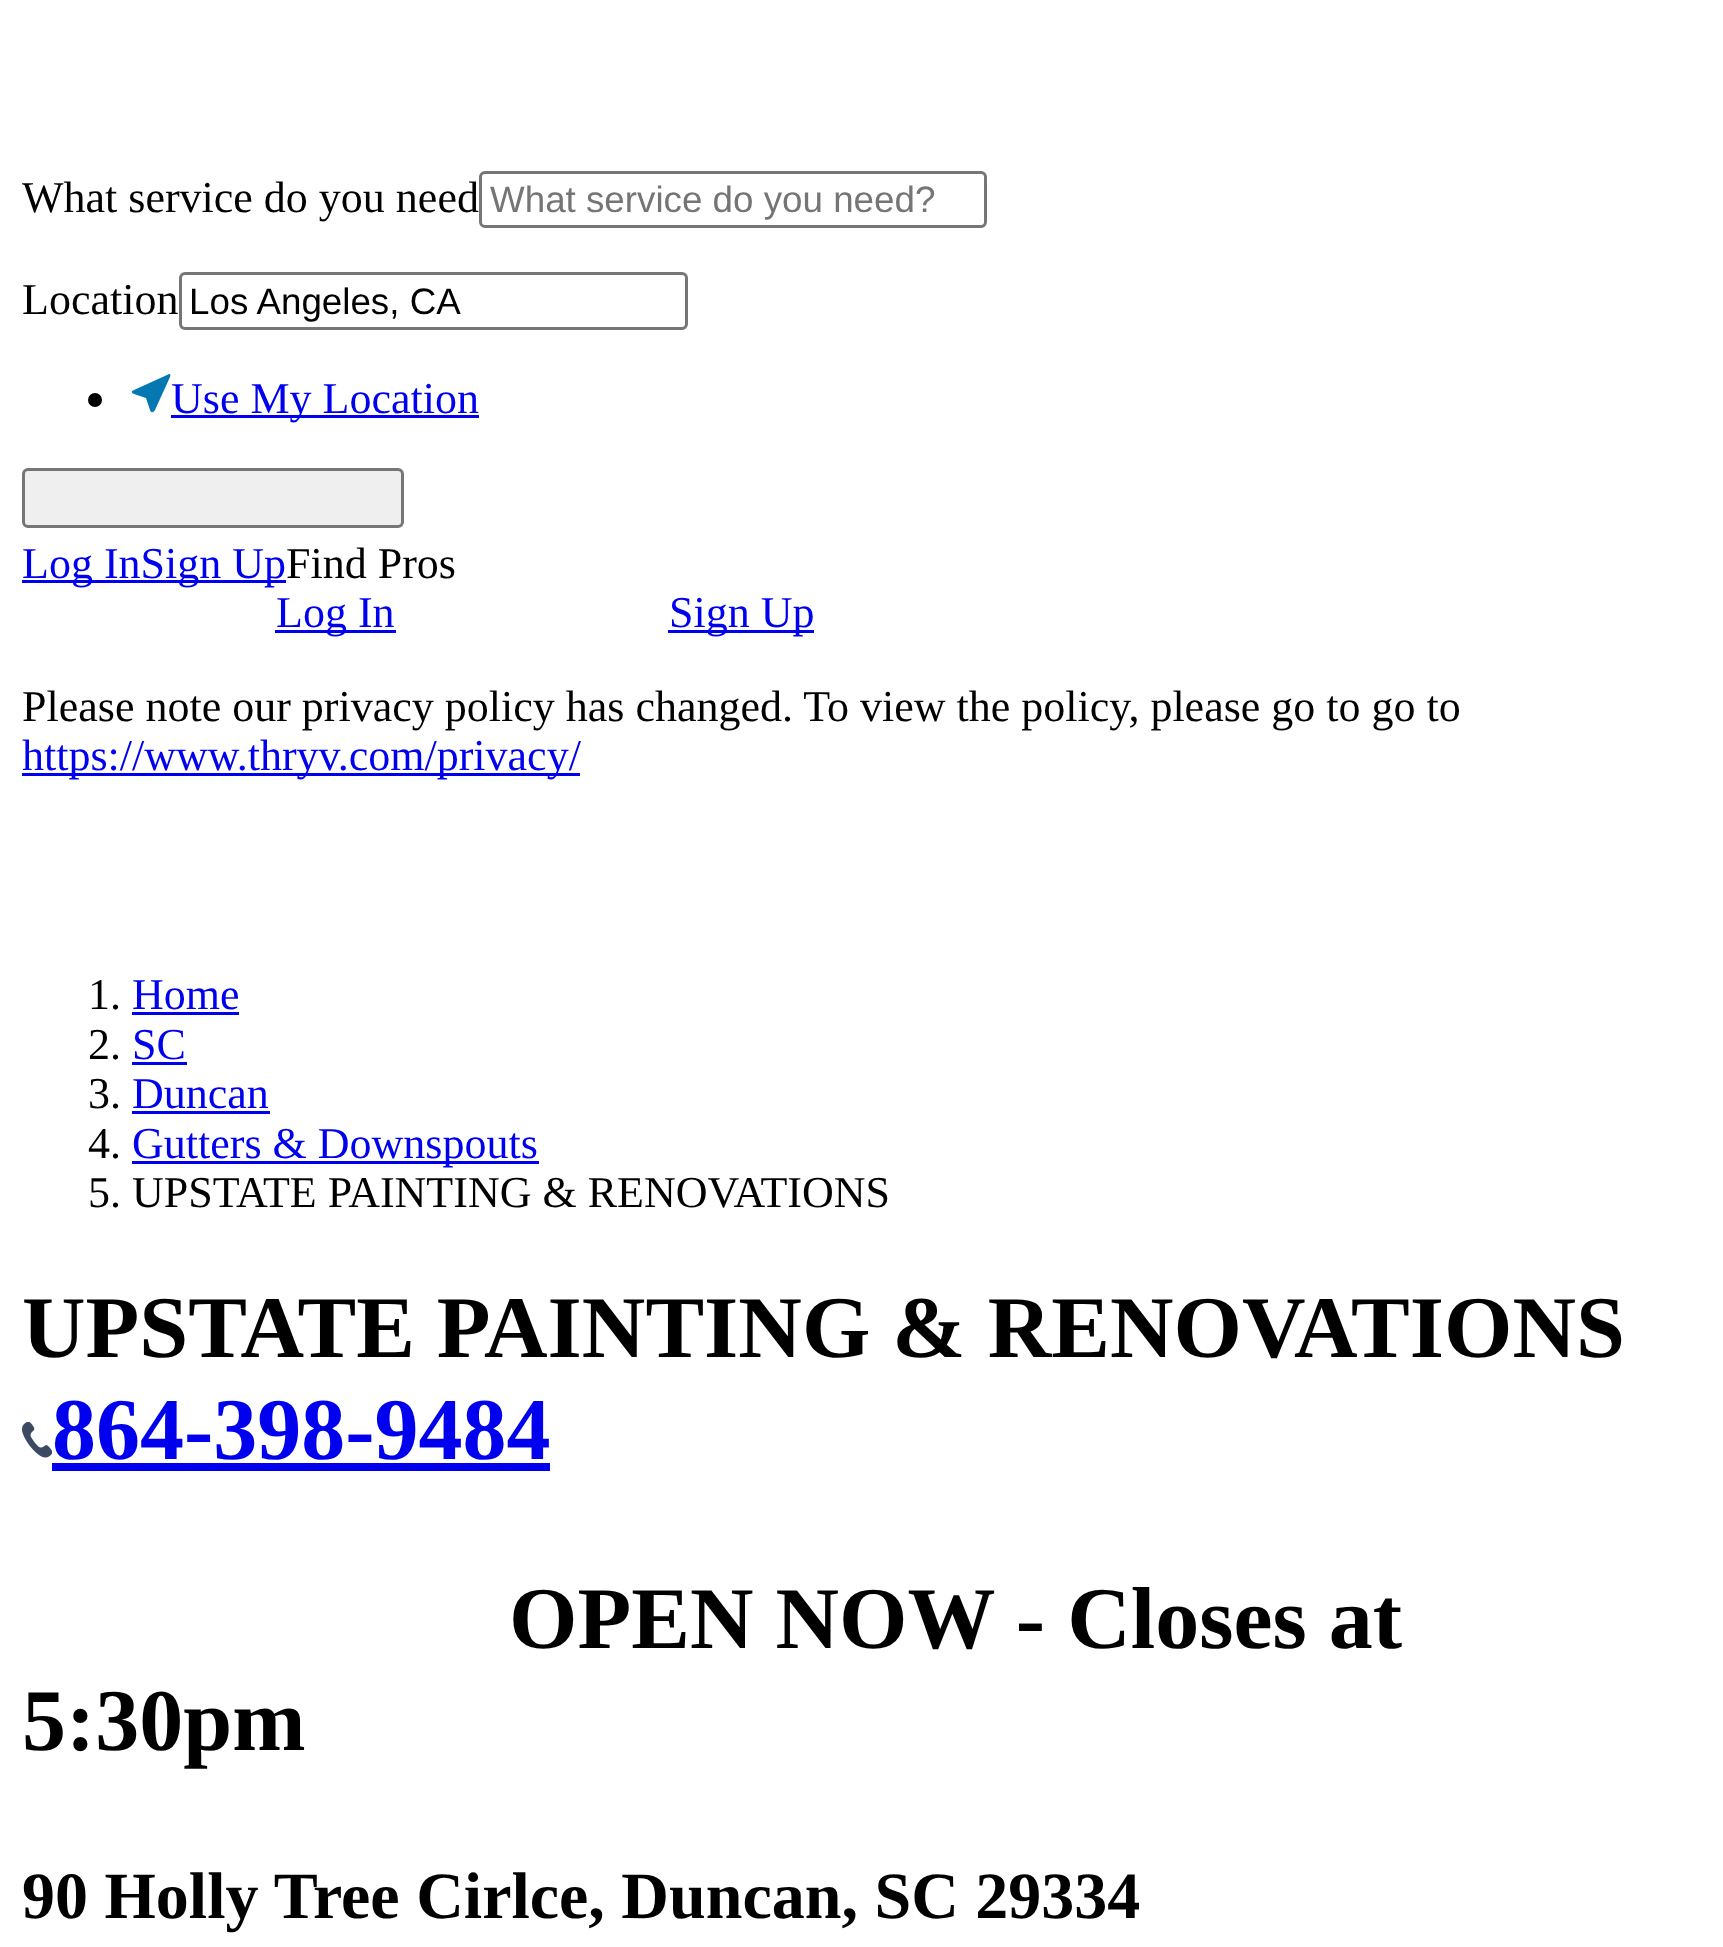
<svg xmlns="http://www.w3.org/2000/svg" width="1723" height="1947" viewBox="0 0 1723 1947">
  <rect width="100%" height="100%" fill="rgb(255,255,255)"/>
  <text x="22" y="212" font-family="Liberation Serif" font-size="44" fill="rgb(0,0,0)">What service do you need</text>
  <rect x="480.5" y="172.5" width="505" height="54" rx="4.5" fill="none" stroke="rgb(118,118,118)" stroke-width="3"/>
  <text x="490" y="212" font-family="Liberation Sans" font-size="36.75" fill="rgb(117,117,117)">What service do you need?</text>
  <text x="22" y="314" font-family="Liberation Serif" font-size="44" fill="rgb(0,0,0)">Location</text>
  <rect x="180.5" y="273.5" width="506" height="55" rx="4.5" fill="none" stroke="rgb(118,118,118)" stroke-width="3"/>
  <text x="189" y="314" font-family="Liberation Sans" font-size="36.75" fill="rgb(0,0,0)">Los Angeles, CA</text>
  <circle cx="95" cy="400" r="7" fill="rgb(0,0,0)"/>
  <path d="M150 410C151 413 153 413 155 410L170 377C171 374 170 373 167 375L134 390C131 391 131 393 134 394L146 398Z" fill="rgb(6,120,177)"/>
  <rect x="171" y="415" width="308" height="3" fill="rgb(0,0,238)"/>
  <text x="171" y="413" font-family="Liberation Serif" font-size="44" fill="rgb(0,0,238)">Use My Location</text>
  <rect x="23.5" y="469.5" width="379" height="57" rx="4.5" fill="rgb(239,239,239)" stroke="rgb(118,118,118)" stroke-width="3"/>
  <rect x="22" y="580" width="264" height="3" fill="rgb(0,0,238)"/>
  <text x="22" y="578" font-family="Liberation Serif" font-size="44" fill="rgb(0,0,238)">Log InSign Up</text>
  <text x="286" y="578" font-family="Liberation Serif" font-size="44" fill="rgb(0,0,0)">Find Pros</text>
  <rect x="275" y="630" width="121" height="3" fill="rgb(0,0,238)"/>
  <text x="276" y="627" font-family="Liberation Serif" font-size="44" fill="rgb(0,0,238)">Log In</text>
  <rect x="668" y="630" width="146" height="3" fill="rgb(0,0,238)"/>
  <text x="669" y="627" font-family="Liberation Serif" font-size="44" fill="rgb(0,0,238)">Sign Up</text>
  <text x="22" y="721" font-family="Liberation Serif" font-size="44" fill="rgb(0,0,0)">Please note our privacy policy has changed. To view the policy, please go to go to</text>
  <rect x="22" y="773" width="558" height="3" fill="rgb(0,0,238)"/>
  <text x="22" y="770" font-family="Liberation Serif" font-size="44" fill="rgb(0,0,238)">https://www.thryv.com/privacy/</text>
  <text x="88" y="1009" font-family="Liberation Serif" font-size="44" fill="rgb(0,0,0)">1.</text>
  <text x="132" y="1009" font-family="Liberation Serif" font-size="44" fill="rgb(0,0,238)">Home</text>
  <rect x="132" y="1012" width="107" height="3" fill="rgb(0,0,238)"/>
  <text x="88" y="1059" font-family="Liberation Serif" font-size="44" fill="rgb(0,0,0)">2.</text>
  <text x="132" y="1059" font-family="Liberation Serif" font-size="44" fill="rgb(0,0,238)">SC</text>
  <rect x="132" y="1062" width="55" height="3" fill="rgb(0,0,238)"/>
  <text x="88" y="1108" font-family="Liberation Serif" font-size="44" fill="rgb(0,0,0)">3.</text>
  <text x="132" y="1108" font-family="Liberation Serif" font-size="44" fill="rgb(0,0,238)">Duncan</text>
  <rect x="132" y="1111" width="138" height="3" fill="rgb(0,0,238)"/>
  <text x="88" y="1158" font-family="Liberation Serif" font-size="44" fill="rgb(0,0,0)">4.</text>
  <rect x="132" y="1161" width="407" height="3" fill="rgb(0,0,238)"/>
  <text x="132" y="1158" font-family="Liberation Serif" font-size="44" fill="rgb(0,0,238)">Gutters &amp; Downspouts</text>
  <text x="88" y="1207" font-family="Liberation Serif" font-size="44" fill="rgb(0,0,0)">5. UPSTATE PAINTING &amp; RENOVATIONS</text>
  <text x="22" y="1357" font-family="Liberation Serif" font-size="88" font-weight="bold" fill="rgb(0,0,0)">UPSTATE PAINTING &amp; RENOVATIONS</text>
  <image x="22" y="1422" width="30" height="36" href="pic1.png"/>
  <text x="52" y="1459" font-family="Liberation Serif" font-size="88" font-weight="bold" fill="rgb(0,0,238)">864-398-9484</text>
  <rect x="52" y="1463" width="498" height="8" fill="rgb(0,0,238)"/>
  <g font-family="Liberation Serif" font-size="88" font-weight="bold" fill="rgb(0,0,0)">
    <text x="509" y="1648">OPEN NOW - Closes at</text>
    <text x="22" y="1750">5:30pm</text>
  </g>
  <text x="22" y="1918" font-family="Liberation Serif" font-size="66" font-weight="bold" fill="rgb(0,0,0)">90 Holly Tree Cirlce, Duncan, SC 29334</text>
</svg>
